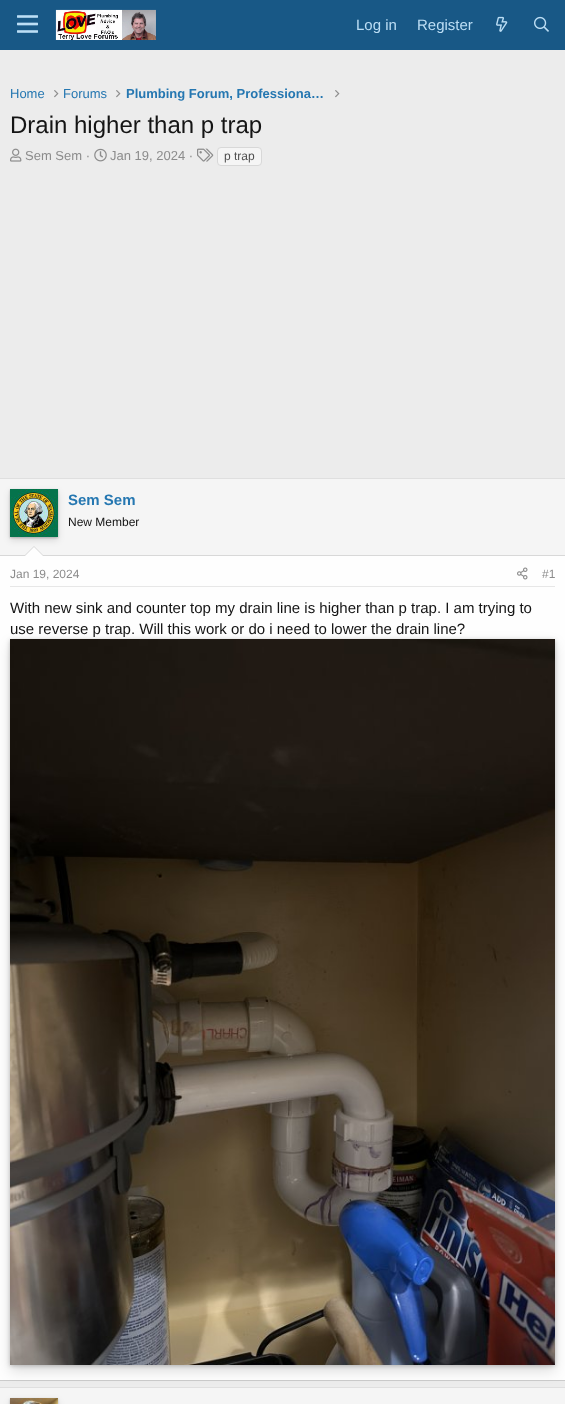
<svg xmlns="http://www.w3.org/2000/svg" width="565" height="1404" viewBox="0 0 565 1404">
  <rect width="100%" height="100%" fill="rgb(236,236,236)"/>
  <rect x="0" y="0" width="565" height="50" fill="rgb(24,88,134)"/>
  <image x="17" y="15" width="21" height="18" href="pic1.png"/>
  <image x="55" y="9" width="101" height="31" href="pic2.png"/>
  <g font-family="Liberation Sans" font-size="15" fill="rgb(188,222,245)">
    <text x="356" y="30">Log in</text>
    <text x="417" y="30">Register</text>
  </g>
  <image x="496" y="16" width="12" height="16" href="pic3.png"/>
  <image x="534" y="16" width="15" height="16" href="pic4.png"/>
  <text x="10" y="98" font-family="Liberation Sans" font-size="13" fill="rgb(37,119,177)">Home</text>
  <image x="54" y="90" width="5" height="8" href="pic5.png"/>
  <text x="63" y="98" font-family="Liberation Sans" font-size="13" fill="rgb(37,119,177)">Forums</text>
  <image x="116" y="90" width="5" height="8" href="pic5.png"/>
  <text x="126" y="98" font-family="Liberation Sans" font-size="13" font-weight="bold" fill="rgb(37,119,177)">Plumbing Forum, Professiona…</text>
  <image x="335" y="90" width="5" height="8" href="pic5.png"/>
  <text x="10" y="133" font-family="Liberation Sans" font-size="24" fill="rgb(20,20,20)">Drain higher than p trap</text>
  <image x="10" y="148" width="12" height="14" href="pic6.png"/>
  <text x="25" y="160" font-family="Liberation Sans" font-size="13" fill="rgb(140,140,140)">Sem Sem ·</text>
  <image x="94" y="148" width="13" height="14" href="pic7.png"/>
  <text x="110" y="160" font-family="Liberation Sans" font-size="13" fill="rgb(140,140,140)">Jan 19, 2024 ·</text>
  <image x="197" y="148" width="17" height="14" href="pic8.png"/>
  <rect x="217.5" y="147.5" width="44" height="18" rx="3.5" fill="rgb(245,245,245)" stroke="rgb(216,216,216)"/>
  <text x="224" y="160" font-family="Liberation Sans" font-size="12" fill="rgb(80,80,80)">p trap</text>
  <rect x="0" y="556" width="565" height="824" fill="rgb(254,254,254)"/>
  <rect x="0" y="478" width="565" height="1" fill="rgb(223,223,223)"/>
  <rect x="0" y="1380" width="565" height="1" fill="rgb(203,203,203)"/>
  <rect x="0" y="479" width="565" height="76" fill="rgb(245,245,245)"/>
  <rect x="0" y="555" width="565" height="1" fill="rgb(216,216,216)"/>
  <rect x="10" y="490" width="48" height="48" fill="rgba(0,0,0,0.21)" filter="blur(1px)"/>
  <rect x="10" y="492" width="48" height="48" fill="rgba(0,0,0,0.13)" filter="blur(3.5px)"/>
  <image x="10" y="489" width="48" height="48" href="pic9.png"/>
  <text x="68" y="505" font-family="Liberation Sans" font-size="15" font-weight="bold" fill="rgb(37,119,177)">Sem Sem</text>
  <text x="68" y="526" font-family="Liberation Sans" font-size="12" fill="rgb(20,20,20)">New Member</text>
  <path d="M44 556H24L34 546Z" fill="rgb(216,216,216)"/>
  <path d="M43 556H25L34 547Z" fill="rgb(254,254,254)"/>
  <rect x="10" y="586" width="545" height="1" fill="rgb(231,231,231)"/>
  <text x="10" y="578" font-family="Liberation Sans" font-size="12" fill="rgb(140,140,140)">Jan 19, 2024</text>
  <image x="517" y="567" width="11" height="13" href="pic10.png"/>
  <text x="542" y="578" font-family="Liberation Sans" font-size="12" fill="rgb(140,140,140)">#1</text>
  <text x="10" y="613" font-family="Liberation Sans" font-size="15" fill="rgb(20,20,20)">With new sink and counter top my drain line is higher than p trap. I am trying to</text>
  <rect x="0" y="1387" width="565" height="1" fill="rgb(223,223,223)"/>
  <rect x="10" y="645" width="545" height="726" fill="rgba(0,0,0,0.13)" filter="blur(7px)"/>
  <rect x="10" y="640" width="545" height="726" fill="rgba(0,0,0,0.22)" filter="blur(2px)"/>
  <image x="10" y="639" width="545" height="726" href="pic11.png"/>
  <text x="10" y="634" font-family="Liberation Sans" font-size="15" fill="rgb(20,20,20)">use reverse p trap. Will this work or do i need to lower the drain line?</text>
  <rect x="0" y="1388" width="565" height="16" fill="rgb(245,245,245)"/>
  <rect x="10" y="1399" width="48" height="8" fill="rgba(0,0,0,0.21)" filter="blur(1px)"/>
  <rect x="10" y="1401" width="48" height="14" fill="rgba(0,0,0,0.13)" filter="blur(3.5px)"/>
  <image x="10" y="1398" width="48" height="6" href="pic12.png"/>
</svg>
